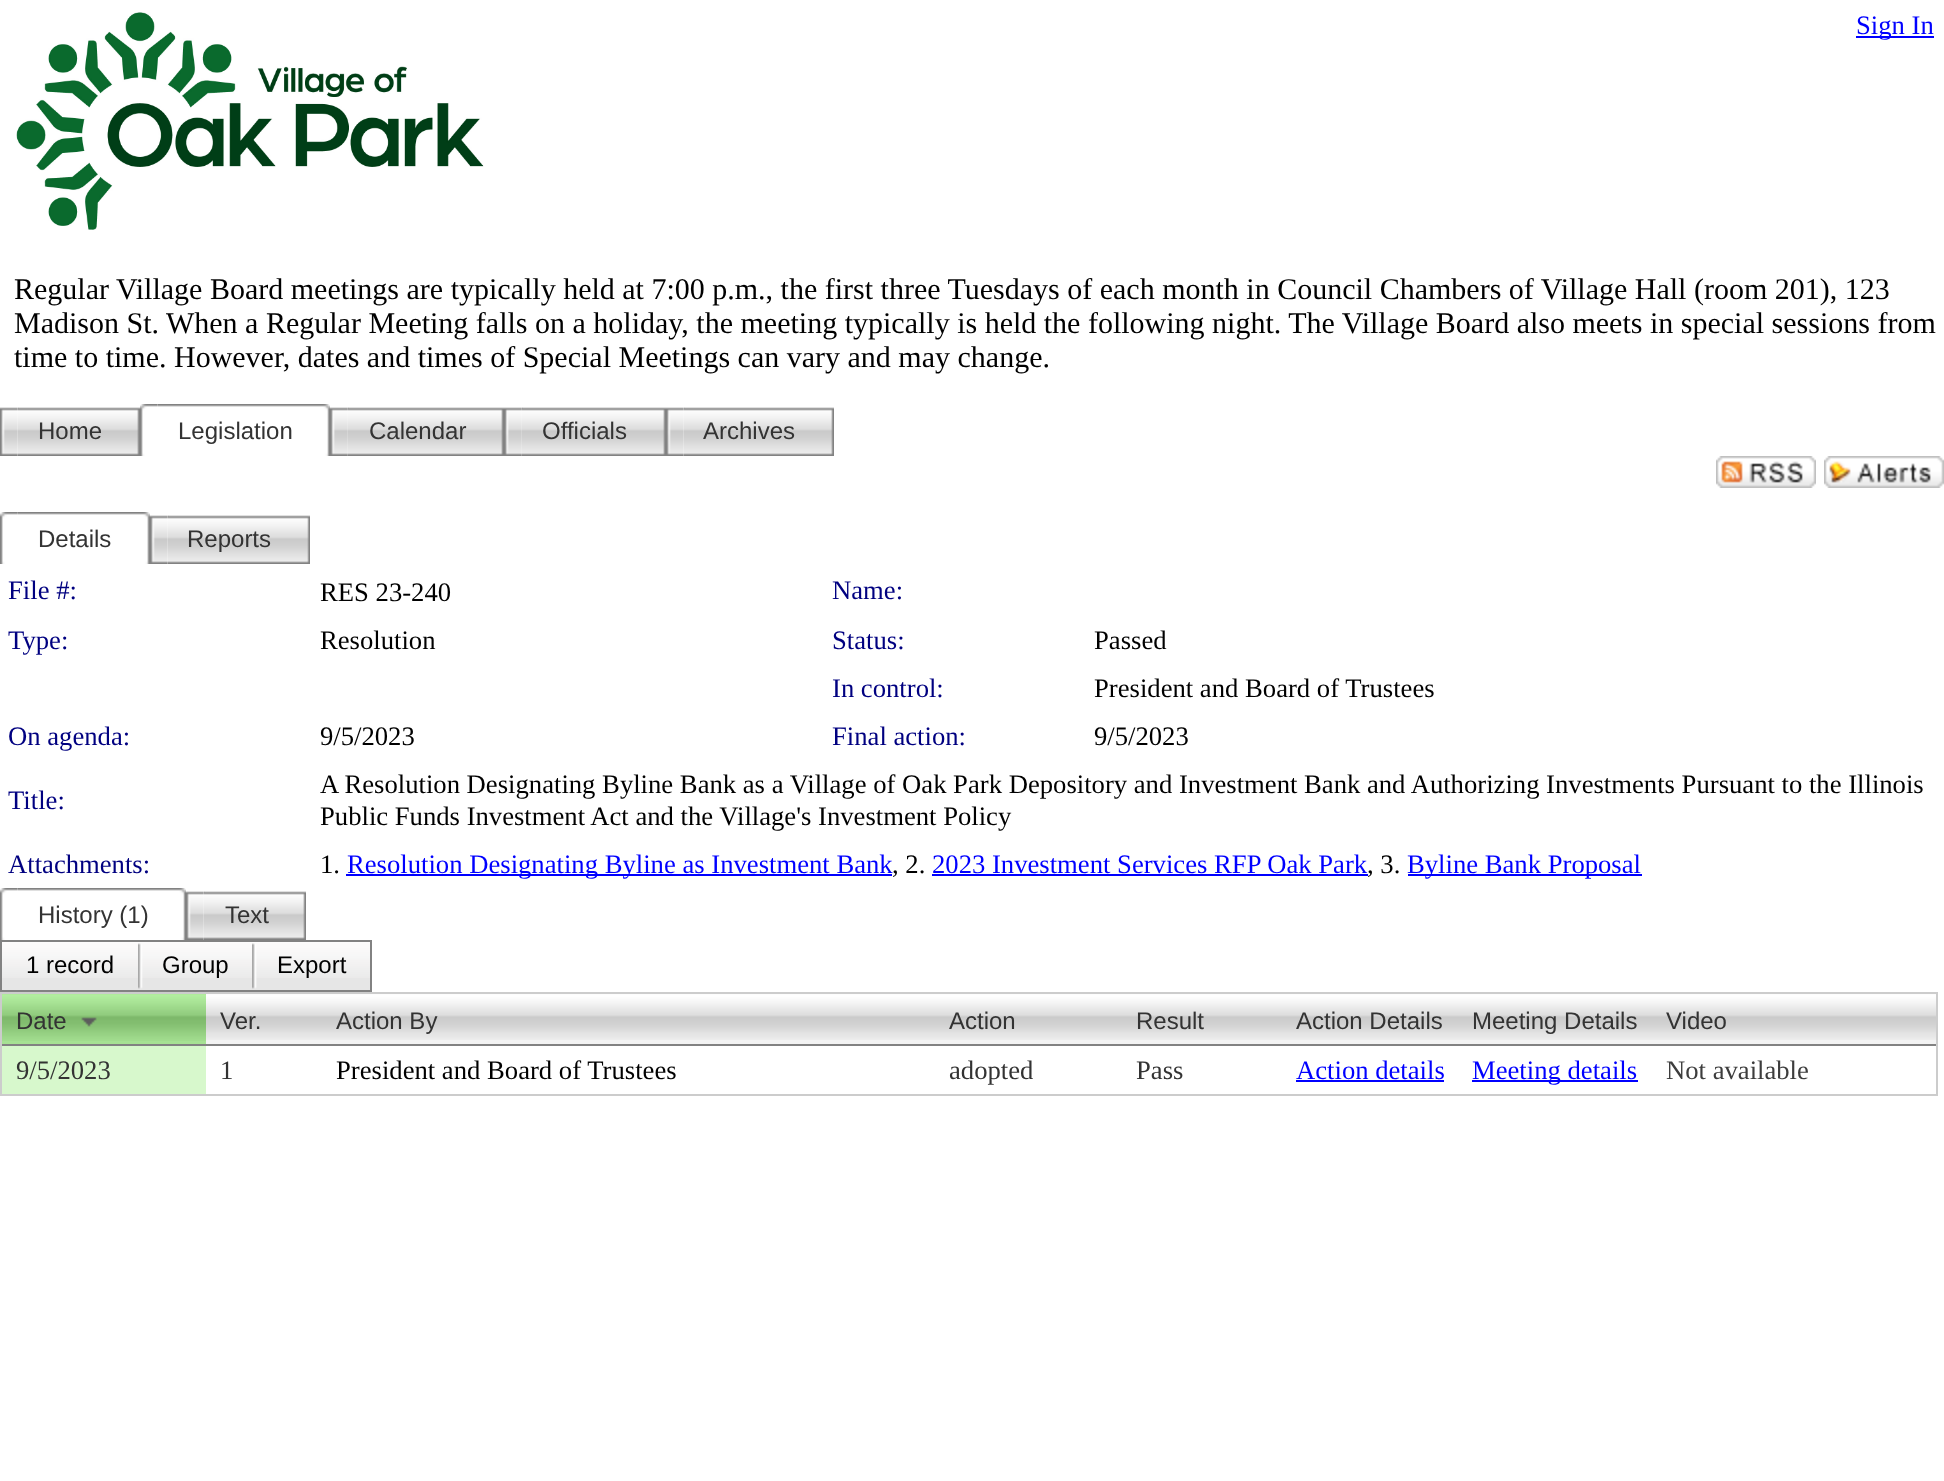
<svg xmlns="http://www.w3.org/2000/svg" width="1944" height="1481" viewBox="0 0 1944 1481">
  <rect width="100%" height="100%" fill="rgb(255,255,255)"/>
  <rect x="1856" y="36" width="78" height="2" fill="rgb(0,0,255)"/>
  <text x="1856" y="34" font-family="Liberation Serif" font-size="26.67" fill="rgb(0,0,255)">Sign In</text>
  <image x="16" y="12" width="468" height="218" href="pic1.png"/>
  <g font-family="Liberation Serif" font-size="30" fill="rgb(0,0,0)">
    <text>
      <tspan x="14" y="299">Regular Village Board meetings are typically held at 7:00 p.m., the first three Tuesdays of each month in Council Chambers of Village Hall (room 201), 123</tspan>
      <tspan x="14" y="333">Madison St. When a Regular Meeting falls on a holiday, the meeting typically is held the following night. The Village Board also meets in special sessions from</tspan>
      <tspan x="14" y="367">time to time. However, dates and times of Special Meetings can vary and may change.</tspan>
    </text>
  </g>
  <image x="0" y="407" width="19" height="49" href="pic2.png"/>
  <image x="18" y="407" width="122" height="49" href="pic3.png"/>
  <text x="38" y="439" font-family="Liberation Sans" font-size="24" fill="rgb(51,51,51)">Home</text>
  <image x="140" y="404" width="18" height="52" href="pic4.png"/>
  <image x="158" y="404" width="172" height="52" href="pic5.png"/>
  <text x="178" y="439" font-family="Liberation Sans" font-size="24" fill="rgb(51,51,51)">Legislation</text>
  <image x="330" y="407" width="19" height="49" href="pic6.png"/>
  <image x="348" y="407" width="156" height="49" href="pic7.png"/>
  <text x="369" y="439" font-family="Liberation Sans" font-size="24" fill="rgb(51,51,51)">Calendar</text>
  <image x="504" y="407" width="19" height="49" href="pic6.png"/>
  <image x="522" y="407" width="144" height="49" href="pic8.png"/>
  <text x="542" y="439" font-family="Liberation Sans" font-size="24" fill="rgb(51,51,51)">Officials</text>
  <image x="666" y="407" width="19" height="49" href="pic2.png"/>
  <image x="684" y="407" width="150" height="49" href="pic9.png"/>
  <text x="703" y="439" font-family="Liberation Sans" font-size="24" fill="rgb(51,51,51)">Archives</text>
  <image x="1716" y="456" width="100" height="32" href="pic10.png"/>
  <image x="1824" y="456" width="120" height="32" href="pic11.png"/>
  <image x="0" y="512" width="18" height="52" href="pic12.png"/>
  <image x="18" y="512" width="132" height="52" href="pic13.png"/>
  <text x="38" y="547" font-family="Liberation Sans" font-size="24" fill="rgb(51,51,51)">Details</text>
  <image x="150" y="515" width="19" height="49" href="pic2.png"/>
  <image x="168" y="515" width="142" height="49" href="pic14.png"/>
  <text x="187" y="547" font-family="Liberation Sans" font-size="24" fill="rgb(51,51,51)">Reports</text>
  <text x="8" y="599" font-family="Liberation Serif" font-size="26.67" fill="rgb(0,0,128)">File #:</text>
  <text x="320" y="601" font-family="Liberation Serif" font-size="26.67" fill="rgb(0,0,0)">RES 23-240</text>
  <g font-family="Liberation Serif" font-size="26.67" fill="rgb(0,0,128)">
    <text x="832" y="599">Name:</text>
    <text x="8" y="649">Type:</text>
  </g>
  <text x="320" y="649" font-family="Liberation Serif" font-size="26.67" fill="rgb(0,0,0)">Resolution</text>
  <text x="832" y="649" font-family="Liberation Serif" font-size="26.67" fill="rgb(0,0,128)">Status:</text>
  <text x="1094" y="649" font-family="Liberation Serif" font-size="26.67" fill="rgb(0,0,0)">Passed</text>
  <text x="832" y="697" font-family="Liberation Serif" font-size="26.67" fill="rgb(0,0,128)">In control:</text>
  <text x="1094" y="697" font-family="Liberation Serif" font-size="26.67" fill="rgb(0,0,0)">President and Board of Trustees</text>
  <text x="8" y="745" font-family="Liberation Serif" font-size="26.67" fill="rgb(0,0,128)">On agenda:</text>
  <text x="320" y="745" font-family="Liberation Serif" font-size="26.67" fill="rgb(0,0,0)">9/5/2023</text>
  <text x="832" y="745" font-family="Liberation Serif" font-size="26.67" fill="rgb(0,0,128)">Final action:</text>
  <text x="1094" y="745" font-family="Liberation Serif" font-size="26.67" fill="rgb(0,0,0)">9/5/2023</text>
  <text x="8" y="809" font-family="Liberation Serif" font-size="26.67" fill="rgb(0,0,128)">Title:</text>
  <g font-family="Liberation Serif" font-size="26.67" fill="rgb(0,0,0)">
    <text>
      <tspan x="320" y="793">A Resolution Designating Byline Bank as a Village of Oak Park Depository and Investment Bank and Authorizing Investments Pursuant to the Illinois</tspan>
      <tspan x="320" y="825">Public Funds Investment Act and the Village's Investment Policy</tspan>
    </text>
  </g>
  <text x="8" y="873" font-family="Liberation Serif" font-size="26.67" fill="rgb(0,0,128)">Attachments:</text>
  <text x="320" y="873" font-family="Liberation Serif" font-size="26.67" fill="rgb(0,0,0)">1.</text>
  <rect x="346" y="874" width="546" height="2" fill="rgb(0,0,255)"/>
  <text x="347" y="873" font-family="Liberation Serif" font-size="26.67" fill="rgb(0,0,255)">Resolution Designating Byline as Investment Bank</text>
  <text x="892" y="873" font-family="Liberation Serif" font-size="26.67" fill="rgb(0,0,0)">, 2.</text>
  <text x="932" y="873" font-family="Liberation Serif" font-size="26.67" fill="rgb(0,0,255)">2023 Investment Services RFP Oak Park</text>
  <text x="1367" y="873" font-family="Liberation Serif" font-size="26.67" fill="rgb(0,0,0)">, 3.</text>
  <rect x="932" y="874" width="436" height="2" fill="rgb(0,0,255)"/>
  <rect x="1408" y="874" width="234" height="2" fill="rgb(0,0,255)"/>
  <text x="1407" y="873" font-family="Liberation Serif" font-size="26.67" fill="rgb(0,0,255)">Byline Bank Proposal</text>
  <image x="0" y="888" width="18" height="52" href="pic4.png"/>
  <image x="18" y="888" width="168" height="52" href="pic15.png"/>
  <text x="38" y="923" font-family="Liberation Sans" font-size="24" fill="rgb(51,51,51)">History (1)</text>
  <image x="186" y="891" width="19" height="49" href="pic2.png"/>
  <image x="204" y="891" width="102" height="49" href="pic16.png"/>
  <text x="225" y="923" font-family="Liberation Sans" font-size="24" fill="rgb(51,51,51)">Text</text>
  <rect x="2" y="978" width="368" height="12" fill="rgb(230,230,230)"/>
  <image x="2" y="942" width="368" height="36" href="pic17.png"/>
  <rect x="1" y="941" width="370" height="50" fill="none" stroke="rgb(130,130,130)" stroke-width="2"/>
  <text x="26" y="973" font-family="Liberation Sans" font-size="24" fill="rgb(0,0,0)">1 record</text>
  <image x="138" y="943" width="5" height="46" href="pic18.png"/>
  <text x="162" y="973" font-family="Liberation Sans" font-size="24" fill="rgb(0,0,0)">Group</text>
  <image x="252" y="943" width="5" height="46" href="pic19.png"/>
  <text x="277" y="973" font-family="Liberation Sans" font-size="24" fill="rgb(0,0,0)">Export</text>
  <rect x="1" y="993" width="1936" height="102" fill="none" stroke="rgb(204,204,204)" stroke-width="2"/>
  <rect x="2" y="994" width="204" height="50" fill="rgb(166,225,147)"/>
  <image x="2" y="994" width="204" height="47" href="pic20.png"/>
  <rect x="2" y="1044" width="1934" height="2" fill="rgb(130,130,130)"/>
  <text x="16" y="1029" font-family="Liberation Sans" font-size="24" fill="rgb(51,51,51)">Date</text>
  <image x="81" y="1017" width="16" height="10" href="pic21.png"/>
  <rect x="206" y="994" width="1730" height="50" fill="rgb(243,243,243)"/>
  <image x="206" y="994" width="116" height="46" href="pic22.png"/>
  <text x="220" y="1029" font-family="Liberation Sans" font-size="24" fill="rgb(51,51,51)">Ver.</text>
  <image x="322" y="994" width="612" height="46" href="pic23.png"/>
  <text x="336" y="1029" font-family="Liberation Sans" font-size="24" fill="rgb(51,51,51)">Action By</text>
  <image x="934" y="994" width="188" height="46" href="pic24.png"/>
  <text x="949" y="1029" font-family="Liberation Sans" font-size="24" fill="rgb(51,51,51)">Action</text>
  <image x="1122" y="994" width="160" height="46" href="pic25.png"/>
  <text x="1136" y="1029" font-family="Liberation Sans" font-size="24" fill="rgb(51,51,51)">Result</text>
  <image x="1282" y="994" width="176" height="46" href="pic26.png"/>
  <text x="1296" y="1029" font-family="Liberation Sans" font-size="24" fill="rgb(51,51,51)">Action Details</text>
  <image x="1458" y="994" width="194" height="46" href="pic27.png"/>
  <text x="1472" y="1029" font-family="Liberation Sans" font-size="24" fill="rgb(51,51,51)">Meeting Details</text>
  <image x="1652" y="994" width="284" height="46" href="pic28.png"/>
  <text x="1666" y="1029" font-family="Liberation Sans" font-size="24" fill="rgb(51,51,51)">Video</text>
  <rect x="2" y="1046" width="204" height="48" fill="rgb(215,248,204)"/>
  <g font-family="Liberation Serif" font-size="26.67" fill="rgb(51,51,51)">
    <text x="16" y="1079">9/5/2023</text>
    <text x="220" y="1079">1</text>
  </g>
  <text x="336" y="1079" font-family="Liberation Serif" font-size="26.67" fill="rgb(0,0,0)">President and Board of Trustees</text>
  <g font-family="Liberation Serif" font-size="26.67" fill="rgb(51,51,51)">
    <text x="949" y="1079">adopted</text>
    <text x="1136" y="1079">Pass</text>
  </g>
  <text x="1296" y="1079" font-family="Liberation Serif" font-size="26.67" fill="rgb(0,0,255)">Action details</text>
  <rect x="1296" y="1080" width="148" height="2" fill="rgb(0,0,255)"/>
  <rect x="1472" y="1080" width="166" height="2" fill="rgb(0,0,255)"/>
  <text x="1472" y="1079" font-family="Liberation Serif" font-size="26.67" fill="rgb(0,0,255)">Meeting details</text>
  <text x="1666" y="1079" font-family="Liberation Serif" font-size="26.67" fill="rgb(61,61,61)">Not available</text>
</svg>
